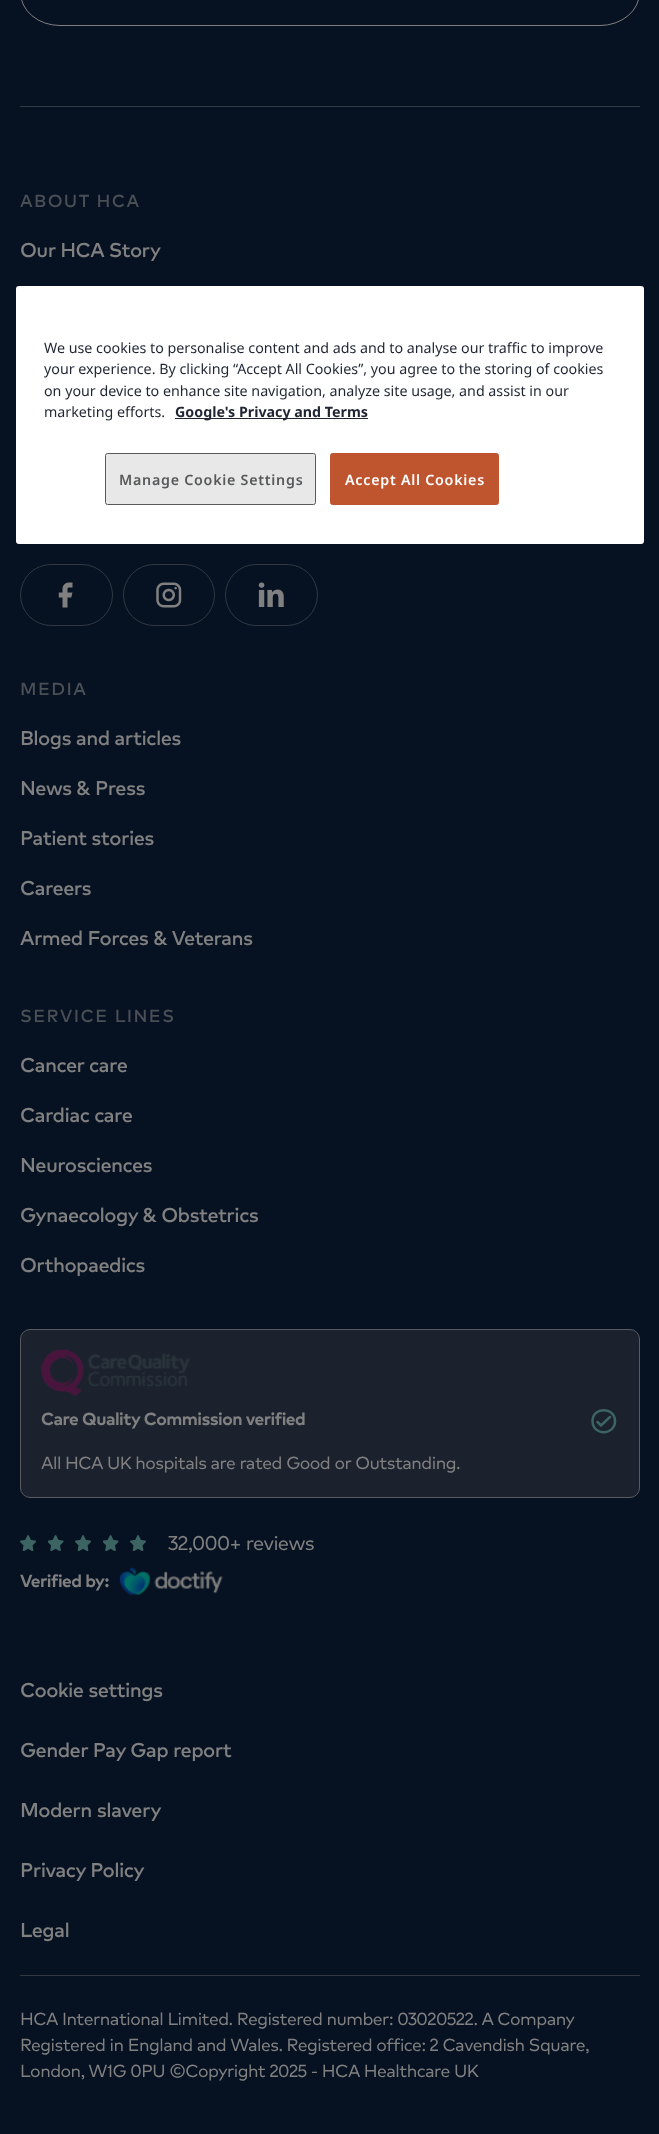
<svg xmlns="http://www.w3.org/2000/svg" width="659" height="2134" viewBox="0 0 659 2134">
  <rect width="100%" height="100%" fill="rgb(6,17,33)"/>
  <rect x="20.5" y="-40.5" width="619" height="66" rx="39.5" fill="none" stroke="rgb(128,128,128)"/>
  <rect x="20" y="106" width="620" height="1" fill="rgb(49,56,65)"/>
  <text x="20" y="207" font-family="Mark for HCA" font-size="17.5" font-weight="500" letter-spacing="1.4" fill="rgb(74,78,85)">ABOUT HCA</text>
  <text x="20" y="257" font-family="Mark for HCA" font-size="20" font-weight="500" letter-spacing="-0.6" fill="rgb(128,128,128)">Our HCA Story</text>
  <rect x="20.5" y="564.5" width="92" height="61" rx="30.5" fill="none" stroke="rgb(49,56,65)"/>
  <image x="58" y="582" width="15" height="26" href="pic1.png"/>
  <rect x="123.5" y="564.5" width="91" height="61" rx="30.5" fill="none" stroke="rgb(49,56,65)"/>
  <image x="156" y="582" width="26" height="26" href="pic2.png"/>
  <rect x="225.5" y="564.5" width="92" height="61" rx="30.5" fill="none" stroke="rgb(49,56,65)"/>
  <image x="258" y="582" width="26" height="25" href="pic3.png"/>
  <text x="20" y="695" font-family="Mark for HCA" font-size="17.5" font-weight="500" letter-spacing="1.4" fill="rgb(74,78,85)">MEDIA</text>
  <g font-family="Mark for HCA" font-size="20" font-weight="500" letter-spacing="-0.6" fill="rgb(128,128,128)">
    <text x="20" y="745">Blogs and articles</text>
    <text x="20" y="795">News &amp; Press</text>
    <text x="20" y="845">Patient stories</text>
    <text x="20" y="895">Careers</text>
    <text x="20" y="945">Armed Forces &amp; Veterans</text>
  </g>
  <text x="20" y="1022" font-family="Mark for HCA" font-size="17.5" font-weight="500" letter-spacing="1.4" fill="rgb(74,78,85)">SERVICE LINES</text>
  <g font-family="Mark for HCA" font-size="20" font-weight="500" letter-spacing="-0.6" fill="rgb(128,128,128)">
    <text x="20" y="1072">Cancer care</text>
    <text x="20" y="1122">Cardiac care</text>
    <text x="20" y="1172">Neurosciences</text>
    <text x="20" y="1222">Gynaecology &amp; Obstetrics</text>
    <text x="20" y="1272">Orthopaedics</text>
  </g>
  <rect x="20.5" y="1329.5" width="619" height="168" rx="9.5" fill="rgb(27,34,46)" stroke="rgb(87,90,96)"/>
  <image x="41" y="1349" width="149" height="47" href="pic4.png"/>
  <text x="41" y="1425" font-family="Mark for HCA" font-size="17.5" font-weight="bold" letter-spacing="-0.53" fill="rgb(128,128,128)">Care Quality Commission verified</text>
  <path d="M597.5 1422L601 1425.5L610 1417" fill="none" stroke="rgb(60,100,98)" stroke-width="2.5" stroke-linecap="round" stroke-linejoin="round"/>
  <path d="M615 1421C615 1436 592.5 1436 592.5 1421C592.5 1406.5 615 1406.5 615 1421Z" fill="none" stroke="rgb(60,100,98)" stroke-width="2.5" stroke-linecap="round"/>
  <text x="41" y="1469" font-family="Mark for HCA" font-size="17.5" letter-spacing="-0.53" fill="rgb(128,128,128)">All HCA UK hospitals are rated Good or Outstanding.</text>
  <image x="20" y="1535" width="16" height="16" href="pic5.png"/>
  <image x="48" y="1535" width="16" height="16" href="pic6.png"/>
  <image x="75" y="1535" width="16" height="16" href="pic5.png"/>
  <image x="103" y="1535" width="16" height="16" href="pic6.png"/>
  <image x="130" y="1535" width="16" height="16" href="pic5.png"/>
  <text x="168" y="1550" font-family="Mark for HCA" font-size="20" letter-spacing="-0.6" fill="rgb(128,128,128)">32,000+ reviews</text>
  <text x="20" y="1587" font-family="Mark for HCA" font-size="17.5" font-weight="bold" letter-spacing="-0.53" fill="rgb(128,128,128)">Verified by:</text>
  <image x="118" y="1567" width="105" height="28" href="pic7.png"/>
  <g font-family="Mark for HCA" font-size="20" font-weight="500" letter-spacing="-0.6" fill="rgb(128,128,128)">
    <text x="20" y="1697">Cookie settings</text>
    <text x="20" y="1757">Gender Pay Gap report</text>
    <text x="20" y="1817">Modern slavery</text>
    <text x="20" y="1877">Privacy Policy</text>
    <text x="20" y="1937">Legal</text>
  </g>
  <rect x="20" y="1975" width="620" height="1" fill="rgb(49,56,65)"/>
  <g font-family="Mark for HCA" font-size="17.5" letter-spacing="-0.53" fill="rgb(128,128,128)">
    <text>
      <tspan x="20" y="2025">HCA International Limited. Registered number: 03020522. A Company</tspan>
      <tspan x="20" y="2051">Registered in England and Wales. Registered office: 2 Cavendish Square,</tspan>
      <tspan x="20" y="2077">London, W1G 0PU ©Copyright 2025 - HCA Healthcare UK</tspan>
    </text>
  </g>
  <rect x="16" y="286" width="628" height="258" rx="3" fill="rgb(255,255,255)"/>
  <g font-family="Noto Sans" font-size="14.25" fill="rgb(31,37,50)">
    <text>
      <tspan x="44" y="353">We use cookies to personalise content and ads and to analyse our traffic to improve</tspan>
      <tspan x="44" y="374">your experience. By clicking “Accept All Cookies”, you agree to the storing of cookies</tspan>
      <tspan x="44" y="396">on your device to enhance site navigation, analyze site usage, and assist in our</tspan>
      <tspan x="44" y="417">marketing efforts.</tspan>
    </text>
  </g>
  <rect x="175" y="418" width="193" height="1" fill="rgb(31,37,50)"/>
  <text x="175" y="417" font-family="Noto Sans" font-size="14.25" font-weight="bold" fill="rgb(31,37,50)">Google's Privacy and Terms</text>
  <rect x="105.5" y="453.5" width="210" height="51" rx="2" fill="rgb(231,232,231)" stroke="rgb(88,89,91)"/>
  <text x="119" y="485" font-family="Noto Sans" font-size="14.25" font-weight="600" letter-spacing="0.75" fill="rgb(88,89,91)">Manage Cookie Settings</text>
  <rect x="330.5" y="453.5" width="168" height="51" rx="2" fill="rgb(190,85,46)" stroke="rgb(190,85,46)"/>
  <text x="345" y="485" font-family="Noto Sans" font-size="14.25" font-weight="600" letter-spacing="0.75" fill="rgb(255,255,255)">Accept All Cookies</text>
</svg>
